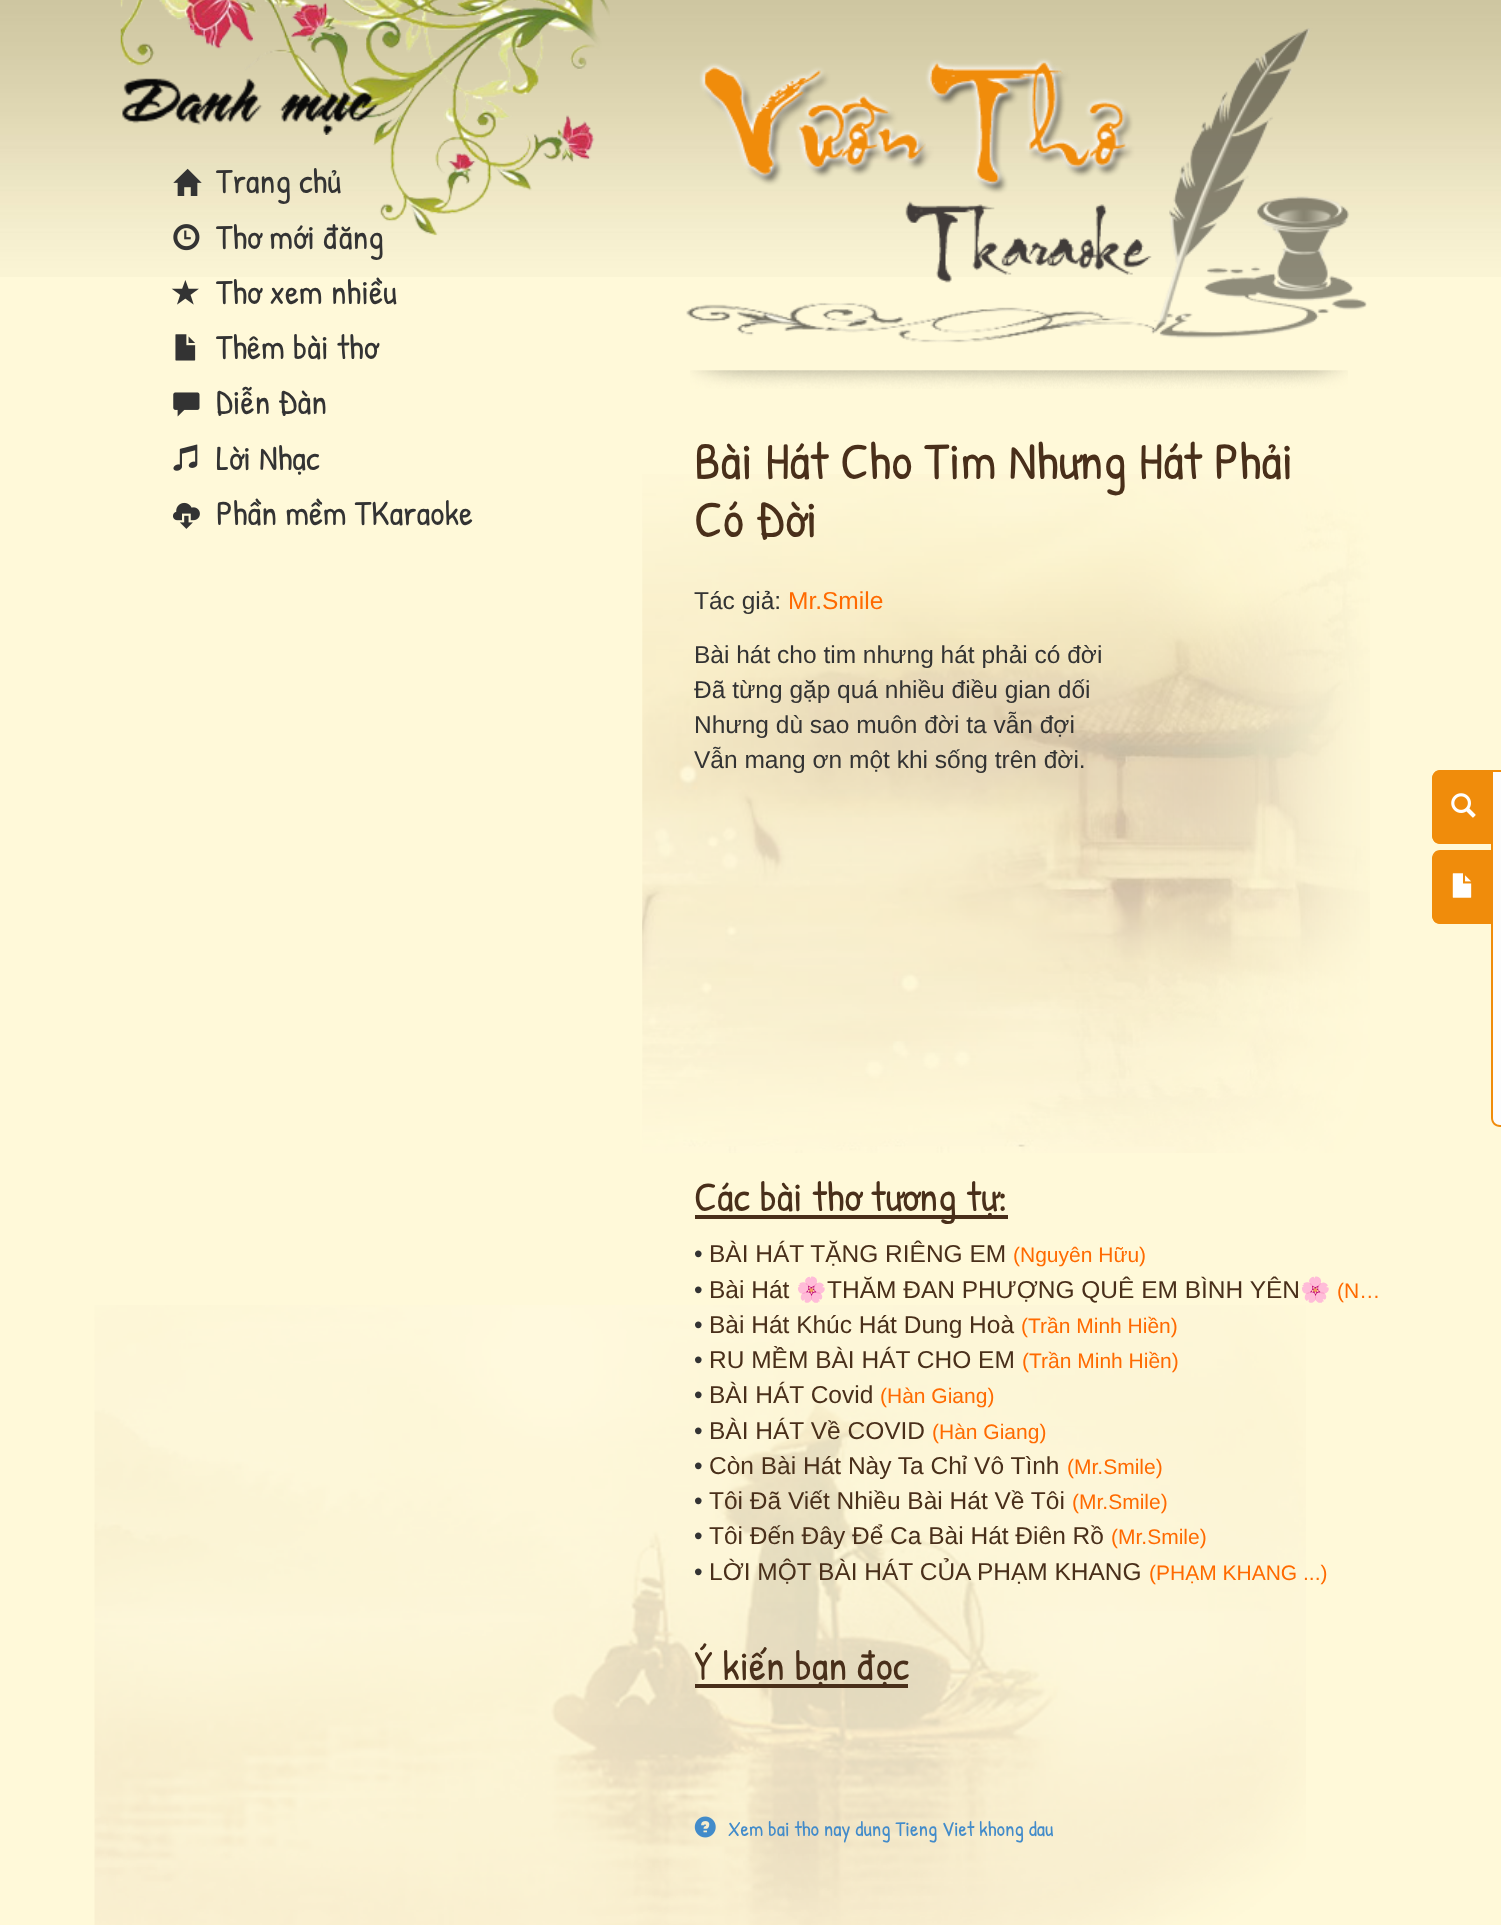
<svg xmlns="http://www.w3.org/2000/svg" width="1501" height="1925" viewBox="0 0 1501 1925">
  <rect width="100%" height="100%" fill="rgb(255,249,217)"/>
  <image x="0" y="0" width="1501" height="277" href="pic1.png"/>
  <image x="94" y="1305" width="1212" height="620" href="pic2.png"/>
  <image x="120" y="0" width="490" height="236" href="pic3.png"/>
  <image x="122" y="78" width="257" height="57" href="pic4.png"/>
  <image x="173" y="168" width="29" height="28" href="pic5.png"/>
  <text x="216" y="193" font-family="Patrick Hand" font-size="35" fill="rgb(51,51,51)">Trang chủ</text>
  <image x="173" y="224" width="27" height="27" href="pic6.png"/>
  <text x="216" y="249" font-family="Patrick Hand" font-size="35" fill="rgb(51,51,51)">Thơ mới đăng</text>
  <image x="171" y="280" width="28" height="25" href="pic7.png"/>
  <text x="216" y="304" font-family="Patrick Hand" font-size="35" fill="rgb(51,51,51)">Thơ xem nhiều</text>
  <image x="175" y="334" width="21" height="27" href="pic8.png"/>
  <text x="216" y="359" font-family="Patrick Hand" font-size="35" fill="rgb(51,51,51)">Thêm bài thơ</text>
  <image x="173" y="392" width="27" height="25" href="pic9.png"/>
  <text x="216" y="414" font-family="Patrick Hand" font-size="35" fill="rgb(51,51,51)">Diễn Đàn</text>
  <image x="173" y="444" width="25" height="27" href="pic10.png"/>
  <text x="216" y="470" font-family="Patrick Hand" font-size="35" fill="rgb(51,51,51)">Lời Nhạc</text>
  <image x="173" y="502" width="27" height="27" href="pic11.png"/>
  <text x="216" y="525" font-family="Patrick Hand" font-size="35" fill="rgb(51,51,51)">Phần mềm TKaraoke</text>
  <image x="686" y="28" width="681" height="315" href="pic12.png"/>
  <image x="690" y="370" width="658" height="19" href="pic13.png"/>
  <image x="642" y="474" width="728" height="679" href="pic14.png"/>
  <g font-family="Patrick Hand" font-size="52.5" fill="rgb(73,47,26)">
    <text>
      <tspan x="694" y="479">Bài Hát Cho Tim Nhưng Hát Phải</tspan>
      <tspan x="694" y="537">Có Đời</tspan>
    </text>
  </g>
  <text x="694" y="609" font-family="Liberation Sans" font-size="24.5" fill="rgb(51,51,51)">Tác giả:</text>
  <text x="788" y="609" font-family="Liberation Sans" font-size="24.5" fill="rgb(255,106,0)">Mr.Smile</text>
  <g font-family="Liberation Sans" font-size="24.5" fill="rgb(51,51,51)">
    <text>
      <tspan x="694" y="663">Bài hát cho tim nhưng hát phải có đời</tspan>
      <tspan x="694" y="698">Đã từng gặp quá nhiều điều gian dối</tspan>
      <tspan x="694" y="733">Nhưng dù sao muôn đời ta vẫn đợi</tspan>
      <tspan x="694" y="768">Vẫn mang ơn một khi sống trên đời.</tspan>
    </text>
  </g>
  <rect x="695" y="1215" width="313" height="4" fill="rgb(73,47,26)"/>
  <text x="694" y="1211" font-family="Patrick Hand" font-size="42" fill="rgb(73,47,26)">Các bài thơ tương tự:</text>
  <text x="694" y="1262" font-family="Liberation Sans" font-size="24.5" fill="rgb(51,51,51)">•</text>
  <text x="709" y="1262" font-family="Liberation Sans" font-size="24.5" fill="rgb(73,47,26)">BÀI HÁT TẶNG RIÊNG EM</text>
  <text x="1013" y="1262" font-family="Liberation Sans" font-size="21" fill="rgb(255,106,0)">(Nguyên Hữu)</text>
  <text x="694" y="1298" font-family="Liberation Sans" font-size="24.5" fill="rgb(51,51,51)">•</text>
  <text x="709" y="1298" font-family="Liberation Sans" font-size="24.5" fill="rgb(73,47,26)">Bài Hát</text>
  <text x="796" y="1298" font-family="Noto Color Emoji" font-size="24.5" fill="rgb(73,47,26)">🌸</text>
  <text x="827" y="1298" font-family="Liberation Sans" font-size="24.5" fill="rgb(73,47,26)">THĂM ĐAN PHƯỢNG QUÊ EM BÌNH YÊN</text>
  <text x="1300" y="1298" font-family="Noto Color Emoji" font-size="24.5" fill="rgb(73,47,26)">🌸</text>
  <text x="1337" y="1298" font-family="Liberation Sans" font-size="21" fill="rgb(255,106,0)">(N…</text>
  <text x="694" y="1333" font-family="Liberation Sans" font-size="24.5" fill="rgb(51,51,51)">•</text>
  <text x="709" y="1333" font-family="Liberation Sans" font-size="24.5" fill="rgb(73,47,26)">Bài Hát Khúc Hát Dung Hoà</text>
  <text x="1021" y="1333" font-family="Liberation Sans" font-size="21" fill="rgb(255,106,0)">(Trần Minh Hiền)</text>
  <text x="694" y="1368" font-family="Liberation Sans" font-size="24.5" fill="rgb(51,51,51)">•</text>
  <text x="709" y="1368" font-family="Liberation Sans" font-size="24.5" fill="rgb(73,47,26)">RU MỀM BÀI HÁT CHO EM</text>
  <text x="1022" y="1368" font-family="Liberation Sans" font-size="21" fill="rgb(255,106,0)">(Trần Minh Hiền)</text>
  <text x="694" y="1403" font-family="Liberation Sans" font-size="24.5" fill="rgb(51,51,51)">•</text>
  <text x="709" y="1403" font-family="Liberation Sans" font-size="24.5" fill="rgb(73,47,26)">BÀI HÁT Covid</text>
  <text x="880" y="1403" font-family="Liberation Sans" font-size="21" fill="rgb(255,106,0)">(Hàn Giang)</text>
  <text x="694" y="1439" font-family="Liberation Sans" font-size="24.5" fill="rgb(51,51,51)">•</text>
  <text x="709" y="1439" font-family="Liberation Sans" font-size="24.5" fill="rgb(73,47,26)">BÀI HÁT Về COVID</text>
  <text x="932" y="1439" font-family="Liberation Sans" font-size="21" fill="rgb(255,106,0)">(Hàn Giang)</text>
  <text x="694" y="1474" font-family="Liberation Sans" font-size="24.5" fill="rgb(51,51,51)">•</text>
  <text x="709" y="1474" font-family="Liberation Sans" font-size="24.5" fill="rgb(73,47,26)">Còn Bài Hát Này Ta Chỉ Vô Tình</text>
  <text x="1067" y="1474" font-family="Liberation Sans" font-size="21" fill="rgb(255,106,0)">(Mr.Smile)</text>
  <text x="694" y="1509" font-family="Liberation Sans" font-size="24.5" fill="rgb(51,51,51)">•</text>
  <text x="709" y="1509" font-family="Liberation Sans" font-size="24.5" fill="rgb(73,47,26)">Tôi Đã Viết Nhiều Bài Hát Về Tôi</text>
  <text x="1072" y="1509" font-family="Liberation Sans" font-size="21" fill="rgb(255,106,0)">(Mr.Smile)</text>
  <text x="694" y="1544" font-family="Liberation Sans" font-size="24.5" fill="rgb(51,51,51)">•</text>
  <text x="709" y="1544" font-family="Liberation Sans" font-size="24.5" fill="rgb(73,47,26)">Tôi Đến Đây Để Ca Bài Hát Điên Rồ</text>
  <text x="1111" y="1544" font-family="Liberation Sans" font-size="21" fill="rgb(255,106,0)">(Mr.Smile)</text>
  <text x="694" y="1580" font-family="Liberation Sans" font-size="24.5" fill="rgb(51,51,51)">•</text>
  <text x="709" y="1580" font-family="Liberation Sans" font-size="24.5" fill="rgb(73,47,26)">LỜI MỘT BÀI HÁT CỦA PHẠM KHANG</text>
  <text x="1149" y="1580" font-family="Liberation Sans" font-size="21" fill="rgb(255,106,0)">(PHẠM KHANG ...)</text>
  <rect x="695" y="1684" width="213" height="4" fill="rgb(73,47,26)"/>
  <text x="694" y="1680" font-family="Patrick Hand" font-size="42" fill="rgb(73,47,26)">Ý kiến bạn đọc</text>
  <image x="694" y="1816" width="22" height="22" href="pic15.png"/>
  <text x="728" y="1836" font-family="Patrick Hand" font-size="21" fill="rgb(66,139,202)">Xem bai tho nay dung Tieng Viet khong dau</text>
  <path d="M1491 770H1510V1127H1500C1495 1127 1491 1123 1491 1118Z" fill="rgb(253,253,253)"/>
  <path d="M1491 770H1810V1127H1500C1495 1127 1491 1123 1491 1118ZM1493 772H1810V1125H1500C1496 1125 1493 1122 1493 1118Z" fill="rgb(240,140,11)" fill-rule="evenodd"/>
  <path d="M1441 770H1493V844H1441C1436 844 1432 840 1432 835V779C1432 774 1436 770 1441 770Z" fill="rgb(240,140,11)"/>
  <path d="M1440 770H1493V844H1440C1435 844 1432 840 1432 835V779C1432 774 1435 770 1440 770ZM1440 772H1493V842H1440C1436 842 1433 839 1433 835V779C1433 775 1436 772 1440 772Z" fill="rgb(240,140,11)" fill-rule="evenodd"/>
  <image x="1451" y="793" width="25" height="25" href="pic16.png"/>
  <path d="M1441 851H1493V924H1441C1436 924 1432 920 1432 915V860C1432 855 1436 851 1441 851Z" fill="rgb(240,140,11)"/>
  <path d="M1440 850H1493V924H1440C1435 924 1432 920 1432 915V859C1432 854 1435 850 1440 850ZM1440 852H1493V922H1440C1436 922 1433 919 1433 915V859C1433 855 1436 852 1440 852Z" fill="rgb(240,140,11)" fill-rule="evenodd"/>
  <image x="1452" y="873" width="20" height="25" href="pic17.png"/>
</svg>
